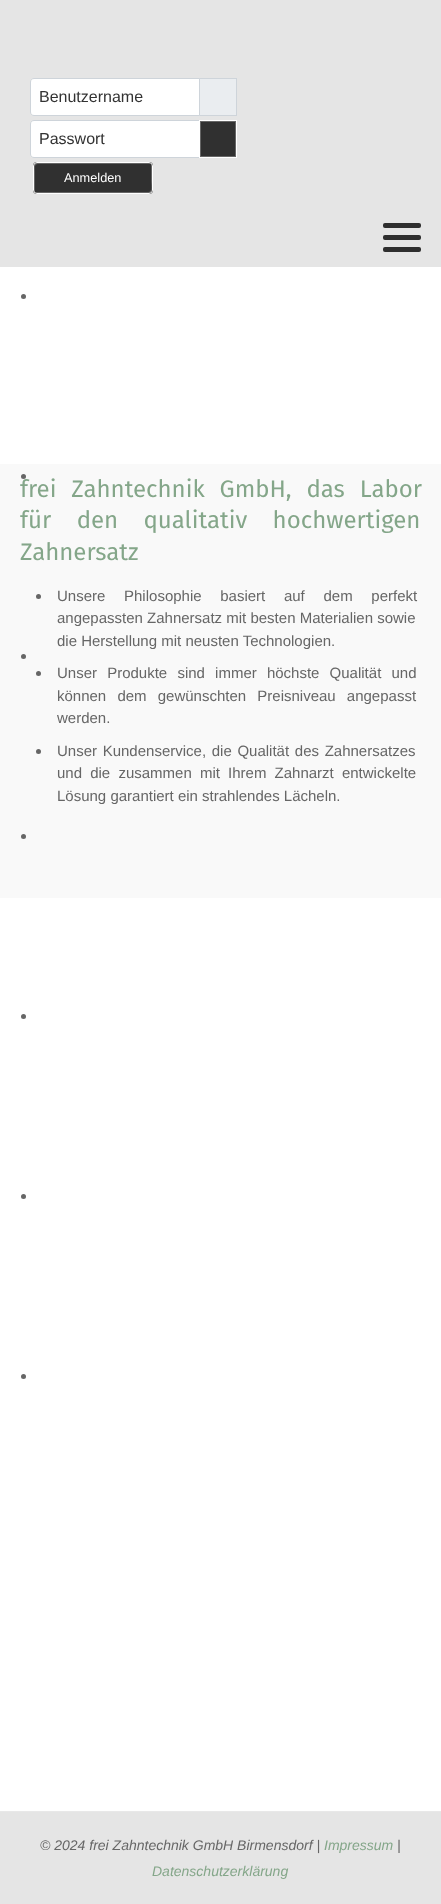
<svg xmlns="http://www.w3.org/2000/svg" width="441" height="1904" viewBox="0 0 441 1904">
  <defs>
    <clipPath id="clip1"><rect x="200" y="121" width="36" height="36"/></clipPath>
  </defs>
  <rect width="100%" height="100%" fill="rgb(255,255,255)"/>
  <rect x="0" y="0" width="441" height="267" fill="rgb(229,229,229)"/>
  <rect x="383" y="235" width="38" height="5" rx="2" fill="rgb(46,46,46)"/>
  <rect x="383" y="223" width="38" height="5" rx="2" fill="rgb(46,46,46)"/>
  <rect x="383" y="247" width="38" height="5" rx="2" fill="rgb(46,46,46)"/>
  <rect x="199.5" y="78.5" width="37" height="37" fill="rgb(234,237,240)" stroke="rgb(206,212,218)"/>
  <path d="M34 78.5H199.5V115.5H34C32 115.5 30.5 114 30.5 112V82C30.5 80 32 78.5 34 78.5Z" fill="rgb(255,255,255)" stroke="rgb(206,212,218)"/>
  <text x="39" y="102" font-family="Liberation Sans" font-size="16" fill="rgb(51,51,51)">Benutzername</text>
  <path d="M34 120.5H199.5V157.5H34C32 157.5 30.5 156 30.5 154V124C30.5 122 32 120.5 34 120.5Z" fill="rgb(255,255,255)" stroke="rgb(206,212,218)"/>
  <text x="39" y="144" font-family="Liberation Sans" font-size="16" fill="rgb(51,51,51)">Passwort</text>
  <rect x="201" y="122" width="34" height="34" fill="rgb(48,48,48)"/>
  <g clip-path="url(#clip1)">
    <path d="M101 22H335V256H101ZM201 122H237V158H201Z" fill="rgb(102,102,102)" fill-rule="evenodd"/>
    <path d="M101 22H335V256H101ZM199 120H235V156H199Z" fill="rgb(102,102,102)" fill-rule="evenodd"/>
  </g>
  <rect x="199.5" y="120.5" width="37" height="37" fill="none" stroke="rgb(255,255,255)"/>
  <rect x="33" y="162" width="120" height="32" rx="4" fill="rgb(48,48,48)"/>
  <path d="M38 164H151L149 163H56C32 163 34 158 34 178C34 181 33 191 35 192V171C35 168 34 164 38 164Z" fill="rgb(102,102,102)"/>
  <path d="M35 192L37 193H130C154 193 152 198 152 178C152 175 153 165 151 164V181C151 184 153 192 148 192Z" fill="rgb(102,102,102)"/>
  <rect x="33.5" y="162.5" width="119" height="31" rx="3.5" fill="none" stroke="rgb(255,255,255)"/>
  <text x="64" y="182" font-family="Liberation Sans" font-size="12.75" fill="rgb(255,255,255)">Anmelden</text>
  <circle cx="23.5" cy="296.5" r="2.5" fill="rgb(102,102,102)"/>
  <rect x="0" y="464" width="441" height="434" fill="rgb(249,249,249)"/>
  <circle cx="23.5" cy="476.5" r="2.5" fill="rgb(102,102,102)"/>
  <circle cx="23.5" cy="656.5" r="2.5" fill="rgb(102,102,102)"/>
  <circle cx="23.5" cy="836.5" r="2.5" fill="rgb(102,102,102)"/>
  <circle cx="23.5" cy="1016.5" r="2.5" fill="rgb(102,102,102)"/>
  <circle cx="23.5" cy="1196.5" r="2.5" fill="rgb(102,102,102)"/>
  <circle cx="23.5" cy="1376.5" r="2.5" fill="rgb(102,102,102)"/>
  <g font-family="Fira Sans" font-size="24" fill="rgb(132,166,137)">
    <text>
      <tspan x="20" y="497" word-spacing="8.5">frei Zahntechnik GmbH, das Labor</tspan>
      <tspan x="20" y="528" word-spacing="19">für den qualitativ hochwertigen</tspan>
      <tspan x="20" y="560">Zahnersatz</tspan>
    </text>
  </g>
  <circle cx="38.5" cy="596.5" r="2.5" fill="rgb(102,102,102)"/>
  <g font-family="Liberation Sans" font-size="15" fill="rgb(102,102,102)">
    <text>
      <tspan x="57" y="601" word-spacing="14.5">Unsere Philosophie basiert auf dem perfekt</tspan>
      <tspan x="57" y="623">angepassten Zahnersatz mit besten Materialien sowie</tspan>
      <tspan x="57" y="646">die Herstellung mit neusten Technologien.</tspan>
    </text>
  </g>
  <circle cx="38.5" cy="673.5" r="2.5" fill="rgb(102,102,102)"/>
  <g font-family="Liberation Sans" font-size="15" fill="rgb(102,102,102)">
    <text>
      <tspan x="57" y="678" word-spacing="6">Unser Produkte sind immer höchste Qualität und</tspan>
      <tspan x="57" y="701" word-spacing="7">können dem gewünschten Preisniveau angepasst</tspan>
      <tspan x="57" y="723">werden.</tspan>
    </text>
  </g>
  <circle cx="38.5" cy="751.5" r="2.5" fill="rgb(102,102,102)"/>
  <g font-family="Liberation Sans" font-size="15" fill="rgb(102,102,102)">
    <text>
      <tspan x="57" y="756" word-spacing="1.5">Unser Kundenservice, die Qualität des Zahnersatzes</tspan>
      <tspan x="57" y="778" word-spacing="4">und die zusammen mit Ihrem Zahnarzt entwickelte</tspan>
      <tspan x="57" y="801">Lösung garantiert ein strahlendes Lächeln.</tspan>
    </text>
  </g>
  <rect x="0" y="1812" width="441" height="92" fill="rgb(229,229,229)"/>
  <rect x="0" y="1811" width="441" height="1" fill="rgb(232,232,232)"/>
  <text x="40" y="1850" font-family="Liberation Sans" font-size="14" font-style="italic" fill="rgb(102,102,102)">© 2024 frei Zahntechnik GmbH Birmensdorf |</text>
  <text x="324" y="1850" font-family="Liberation Sans" font-size="14" font-style="italic" fill="rgb(132,166,137)">Impressum</text>
  <text x="397" y="1850" font-family="Liberation Sans" font-size="14" font-style="italic" fill="rgb(102,102,102)">|</text>
  <text x="152" y="1876" font-family="Liberation Sans" font-size="14" font-style="italic" fill="rgb(132,166,137)">Datenschutzerklärung</text>
</svg>
